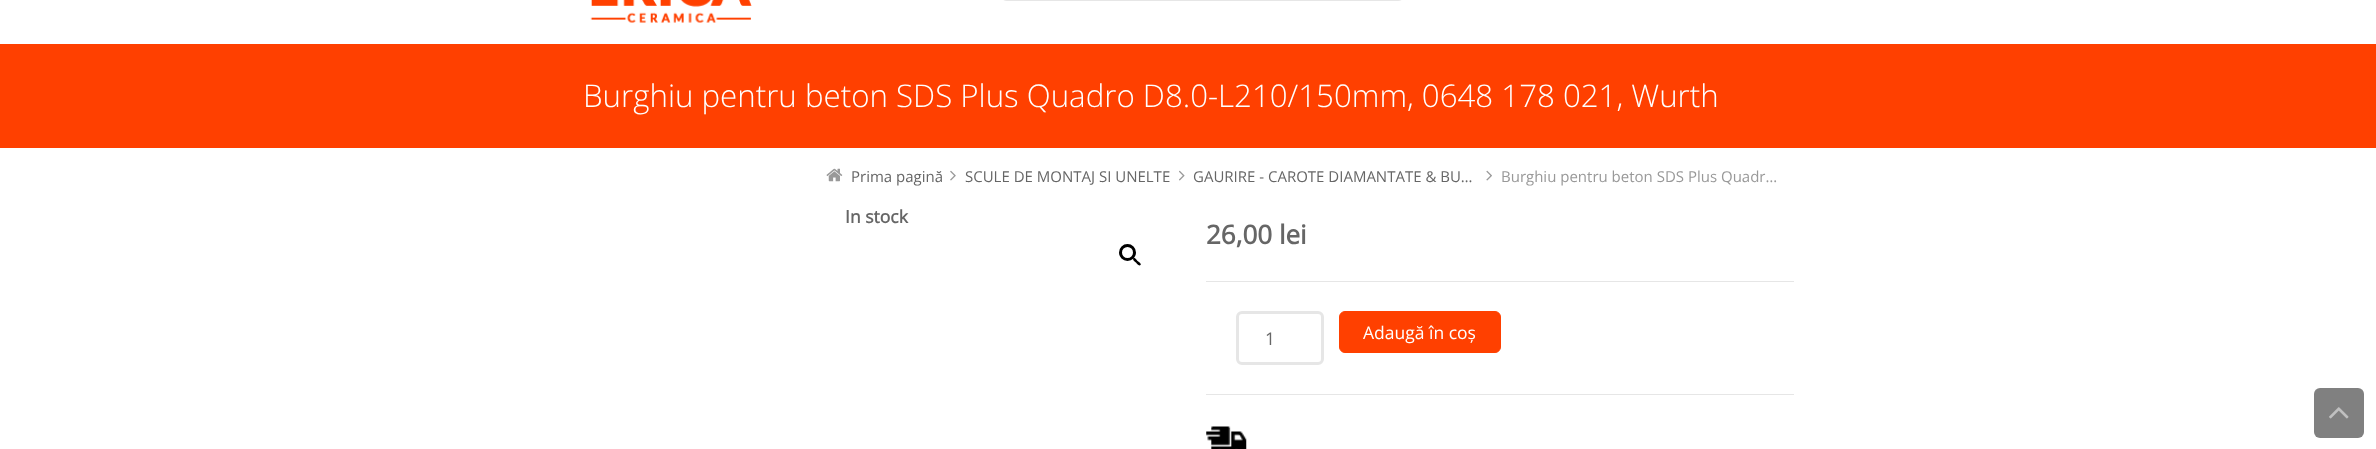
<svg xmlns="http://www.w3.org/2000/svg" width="2376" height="449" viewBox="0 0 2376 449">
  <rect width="100%" height="100%" fill="rgb(255,255,255)"/>
  <rect x="1002.5" y="-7.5" width="400" height="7" rx="4.5" fill="none" stroke="rgb(230,230,230)" stroke-width="3"/>
  <image x="590" y="0" width="162" height="23" href="pic1.png"/>
  <rect x="0" y="44" width="2376" height="104" fill="rgb(255,64,0)"/>
  <text x="583" y="107" font-family="Open Sans" font-size="31.25" font-weight="300" fill="rgb(255,255,255)">Burghiu pentru beton SDS Plus Quadro D8.0-L210/150mm, 0648 178 021, Wurth</text>
  <image x="826" y="168" width="17" height="14" href="pic2.png"/>
  <text x="851" y="182" font-family="Open Sans" font-size="15" fill="rgb(102,102,102)">Prima pagină</text>
  <image x="950" y="170" width="6" height="11" href="pic3.png"/>
  <text x="965" y="182" font-family="Open Sans" font-size="15" fill="rgb(102,102,102)">SCULE DE MONTAJ SI UNELTE</text>
  <image x="1179" y="170" width="6" height="11" href="pic4.png"/>
  <text x="1193" y="182" font-family="Open Sans" font-size="15" fill="rgb(102,102,102)">GAURIRE - CAROTE DIAMANTATE &amp; BU…</text>
  <image x="1486" y="170" width="6" height="11" href="pic5.png"/>
  <text x="1501" y="182" font-family="Open Sans" font-size="15" fill="rgb(153,153,153)">Burghiu pentru beton SDS Plus Quadr…</text>
  <text x="845" y="223" font-family="Open Sans" font-size="17.5" font-weight="bold" fill="rgb(102,102,102)">In stock</text>
  <circle cx="1127.5" cy="252.5" r="7" fill="none" stroke="rgb(0,0,0)" stroke-width="3"/>
  <path d="M1133.5 258C1134.5 256.5 1137 260 1137.5 261C1138.5 261.5 1142 264 1140.5 265C1139 266.5 1136.5 263.5 1136 262.5C1135 262 1132 259.5 1133.5 258Z" fill="rgb(0,0,0)"/>
  <text x="1206" y="244" font-family="Open Sans" font-size="26" font-weight="bold" fill="rgb(102,102,102)">26,00 lei</text>
  <rect x="1206" y="281" width="588" height="1" fill="rgb(230,230,230)"/>
  <rect x="1206" y="394" width="588" height="1" fill="rgb(230,230,230)"/>
  <rect x="1237.5" y="312.5" width="85" height="51" rx="4.5" fill="none" stroke="rgb(230,230,230)" stroke-width="3"/>
  <text x="1265" y="345" font-family="Open Sans" font-size="17.5" fill="rgb(102,102,102)">1</text>
  <rect x="1339.5" y="311.5" width="161" height="41" rx="5.5" fill="rgb(255,64,0)" stroke="rgb(255,64,0)"/>
  <text x="1363" y="339" font-family="Open Sans" font-size="17.5" fill="rgb(255,255,255)">Adaugă în coș</text>
  <image x="1206" y="426" width="41" height="23" href="pic6.png"/>
  <rect x="2314" y="388" width="50" height="50" rx="6" fill="rgb(128,128,128)"/>
  <image x="2329" y="407" width="20" height="12" href="pic7.png"/>
</svg>
